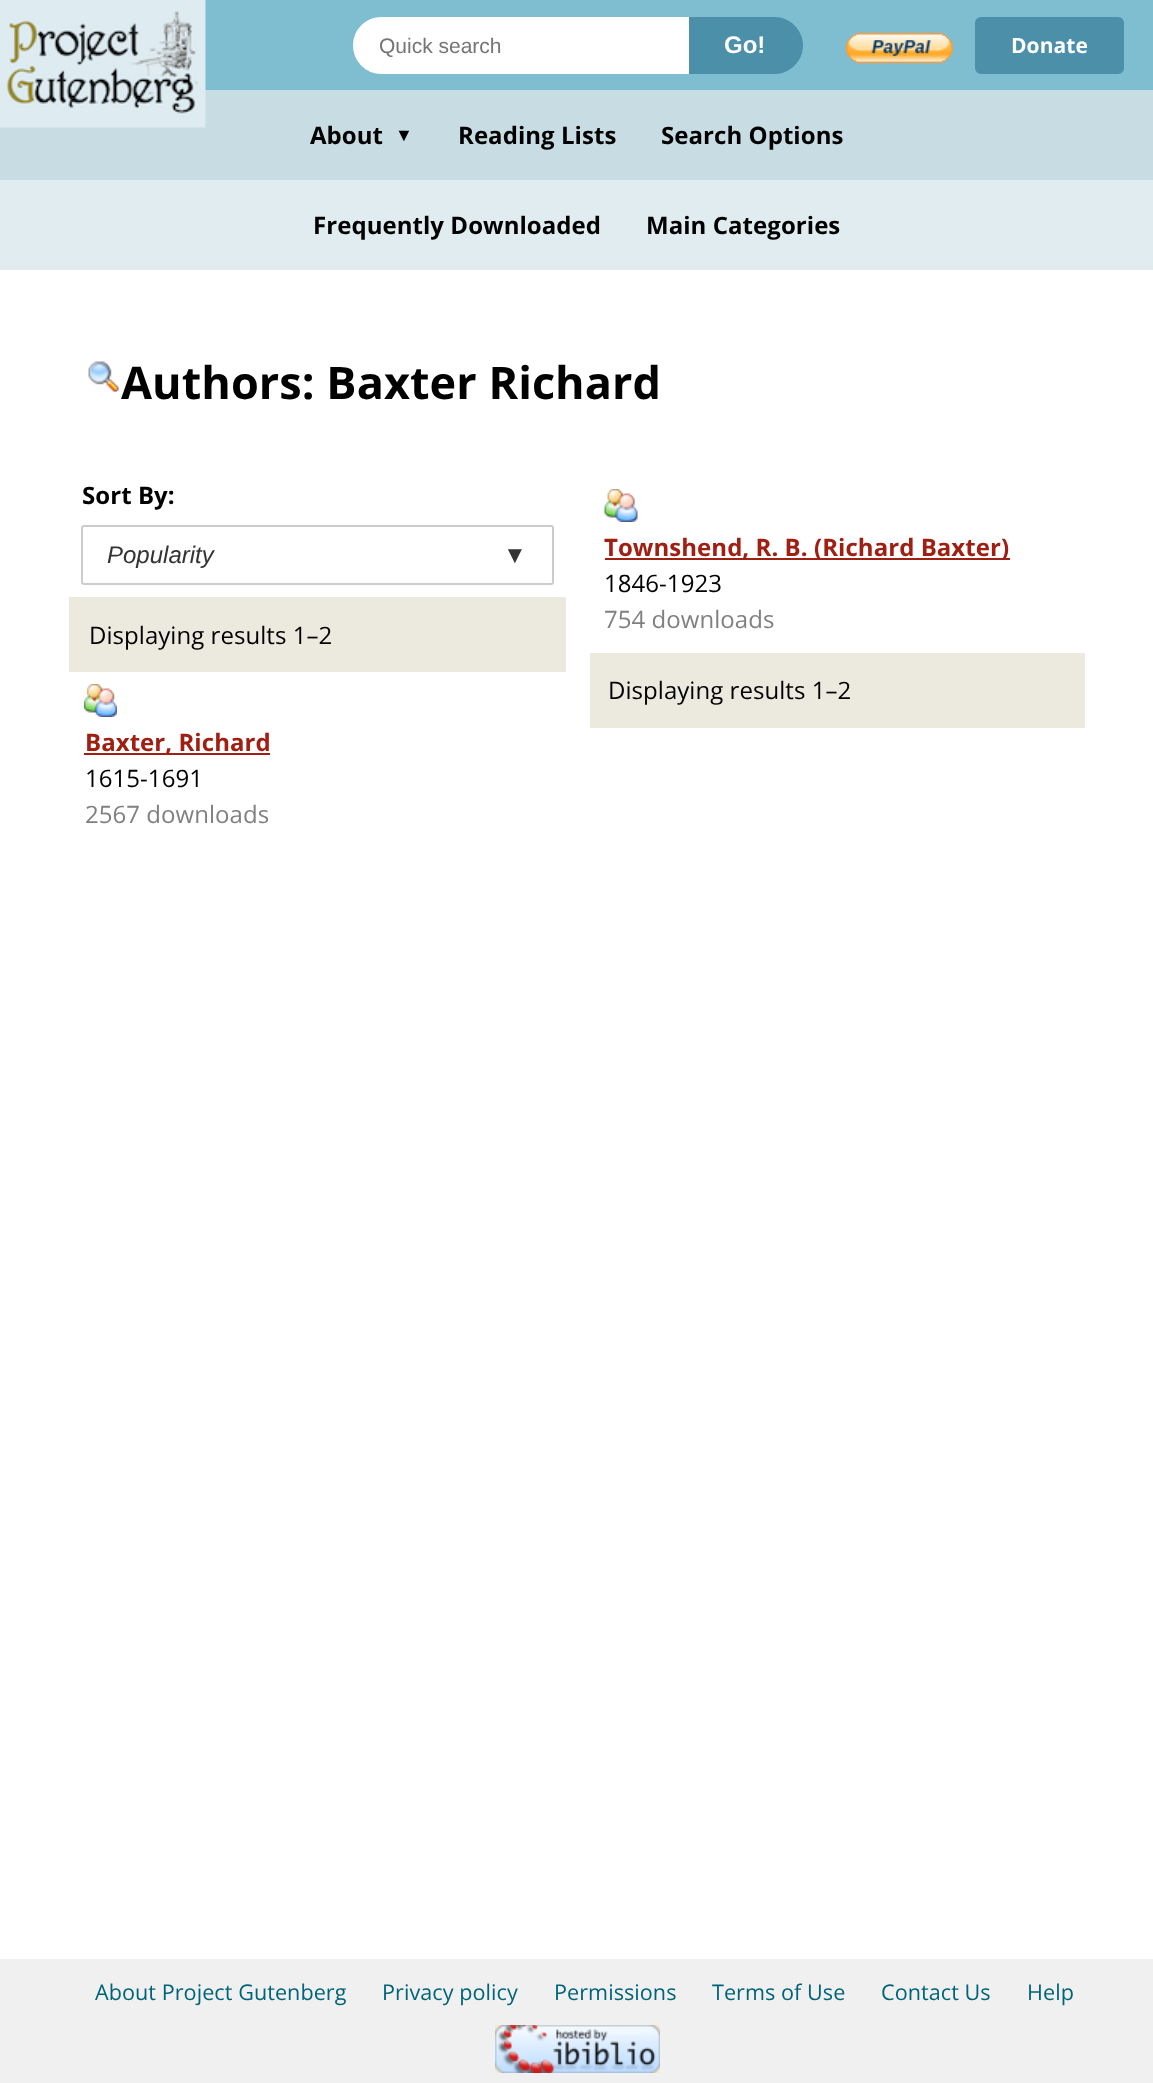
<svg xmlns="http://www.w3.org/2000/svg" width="1153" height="2083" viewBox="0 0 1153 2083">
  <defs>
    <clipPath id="clip1"><rect x="380" y="33" width="282" height="24"/></clipPath>
  </defs>
  <rect width="100%" height="100%" fill="rgb(255,255,255)"/>
  <rect x="205" y="0" width="948" height="90" fill="rgb(126,190,208)"/>
  <rect x="0" y="90" width="1153" height="90" fill="rgb(199,221,227)"/>
  <image x="0" y="0" width="206" height="128" href="pic1.png"/>
  <path d="M381.5 18.5H687.5V72.5H381.5C366.5 72.5 354.5 60.5 354.5 45.5C354.5 30.5 366.5 18.5 381.5 18.5Z" fill="rgb(255,255,255)" stroke="rgb(255,255,255)" stroke-width="3"/>
  <g clip-path="url(#clip1)">
    <text x="379" y="53" font-family="Liberation Sans" font-size="21" fill="rgb(117,117,117)">Quick search</text>
  </g>
  <path d="M689 17H774.5C790 17 803 30 803 45.5C803 61 790 74 774.5 74H689Z" fill="rgb(76,143,168)"/>
  <text x="724" y="53" font-family="Liberation Sans" font-size="24" font-weight="bold" fill="rgb(255,255,255)">Go!</text>
  <image x="846" y="33" width="107" height="30" href="pic2.png"/>
  <rect x="976.5" y="18.5" width="146" height="54" rx="4.5" fill="rgb(76,143,168)" stroke="rgb(76,143,168)" stroke-width="3"/>
  <text x="1011" y="53" font-family="Open Sans" font-size="21" font-weight="bold" letter-spacing="0.05" fill="rgb(255,255,255)">Donate</text>
  <text x="310" y="144" font-family="Open Sans" font-size="24" font-weight="bold" letter-spacing="0.05" fill="rgb(0,0,0)">About</text>
  <text x="395" y="141" font-family="Liberation Sans" font-size="18" font-weight="bold" letter-spacing="0.05" fill="rgb(0,0,0)">▼</text>
  <g font-family="Open Sans" font-size="24" font-weight="bold" letter-spacing="0.05" fill="rgb(0,0,0)">
    <text x="458" y="144">Reading Lists</text>
    <text x="661" y="144">Search Options</text>
  </g>
  <rect x="0" y="180" width="1153" height="90" fill="rgb(224,236,240)"/>
  <g font-family="Open Sans" font-size="24" font-weight="bold" letter-spacing="0.05" fill="rgb(0,0,0)">
    <text x="313" y="234">Frequently Downloaded</text>
    <text x="646" y="234">Main Categories</text>
  </g>
  <image x="88" y="361" width="31" height="31" href="pic3.png"/>
  <text x="121" y="399" font-family="Open Sans" font-size="45" font-weight="bold" letter-spacing="0.05" fill="rgb(0,0,0)">Authors: Baxter Richard</text>
  <text x="82" y="504" font-family="Open Sans" font-size="24" font-weight="bold" letter-spacing="0.05" fill="rgb(0,0,0)">Sort By:</text>
  <rect x="82" y="526" width="471" height="58" rx="2" fill="none" stroke="rgb(204,204,204)" stroke-width="2"/>
  <g font-family="Liberation Sans" font-size="24" font-style="italic" fill="rgb(51,51,51)">
    <text x="107" y="563">Popularity</text>
    <text x="503" y="563">▼</text>
  </g>
  <image x="604" y="489" width="34" height="33" href="pic4.png"/>
  <rect x="605" y="558" width="405" height="2" fill="rgb(160,31,19)"/>
  <text x="604" y="556" font-family="Open Sans" font-size="24" font-weight="bold" letter-spacing="0.05" fill="rgb(160,31,19)">Townshend, R. B. (Richard Baxter)</text>
  <text x="604" y="592" font-family="Open Sans" font-size="24" letter-spacing="0.05" fill="rgb(0,0,0)">1846-1923</text>
  <text x="604" y="628" font-family="Open Sans" font-size="24" letter-spacing="0.05" fill="rgb(128,128,128)">754 downloads</text>
  <rect x="69" y="597" width="497" height="75" fill="rgb(236,234,223)"/>
  <text x="89" y="644" font-family="Open Sans" font-size="24" letter-spacing="0.05" fill="rgb(0,0,0)">Displaying results 1–2</text>
  <rect x="590" y="653" width="495" height="75" fill="rgb(236,234,223)"/>
  <text x="608" y="699" font-family="Open Sans" font-size="24" letter-spacing="0.05" fill="rgb(0,0,0)">Displaying results 1–2</text>
  <image x="84" y="684" width="33" height="33" href="pic5.png"/>
  <rect x="84" y="753" width="186" height="2" fill="rgb(160,31,19)"/>
  <text x="85" y="751" font-family="Open Sans" font-size="24" font-weight="bold" letter-spacing="0.05" fill="rgb(160,31,19)">Baxter, Richard</text>
  <text x="85" y="787" font-family="Open Sans" font-size="24" letter-spacing="0.05" fill="rgb(0,0,0)">1615-1691</text>
  <text x="85" y="823" font-family="Open Sans" font-size="24" letter-spacing="0.05" fill="rgb(128,128,128)">2567 downloads</text>
  <rect x="0" y="1959" width="1153" height="124" fill="rgb(240,240,240)"/>
  <g font-family="Open Sans" font-size="21.6" letter-spacing="0.05" fill="rgb(0,100,121)">
    <text x="95" y="2000">About Project Gutenberg</text>
    <text x="382" y="2000">Privacy policy</text>
    <text x="554" y="2000">Permissions</text>
    <text x="712" y="2000">Terms of Use</text>
    <text x="881" y="2000">Contact Us</text>
    <text x="1027" y="2000">Help</text>
  </g>
  <image x="495" y="2025" width="165" height="48" href="pic6.png"/>
</svg>
